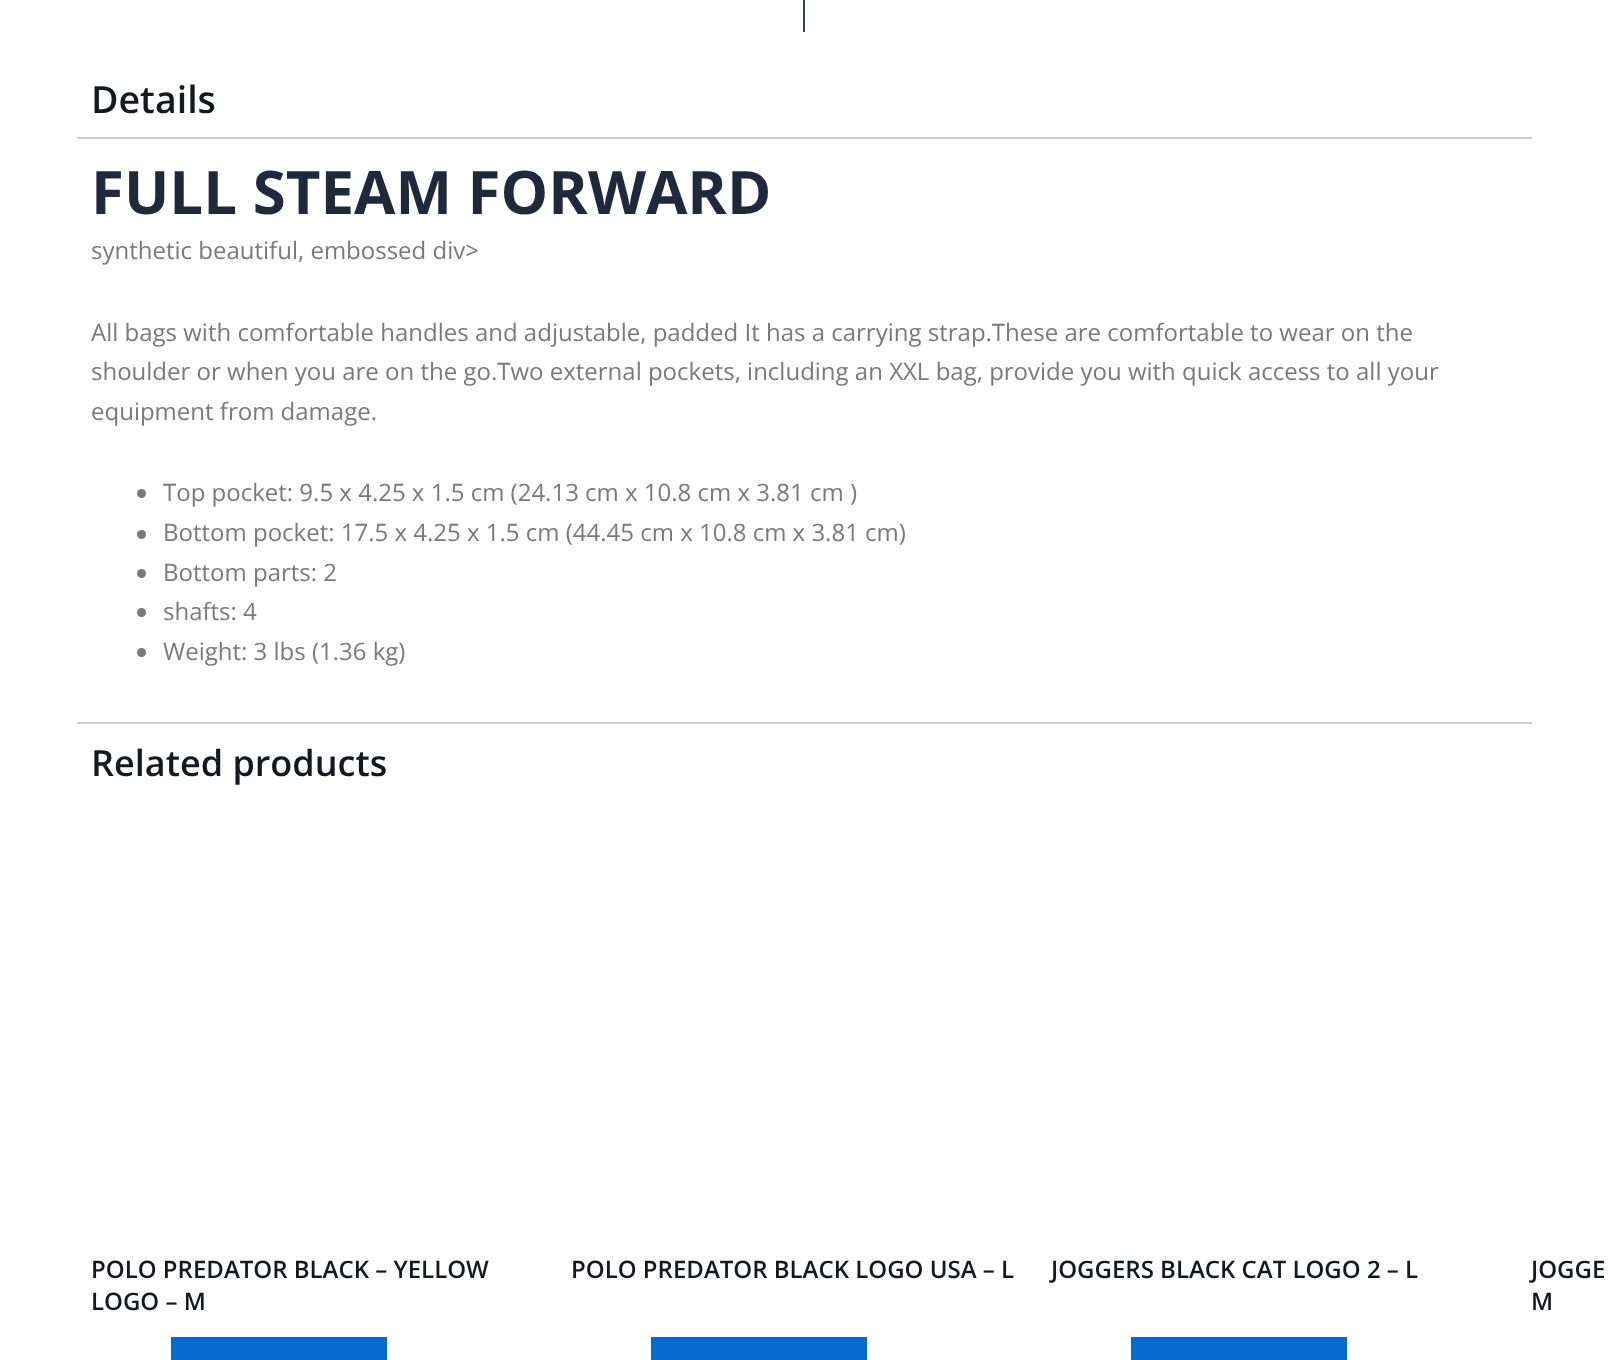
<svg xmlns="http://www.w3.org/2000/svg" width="1608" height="1360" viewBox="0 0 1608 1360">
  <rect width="100%" height="100%" fill="rgb(255,255,255)"/>
  <rect x="803" y="0" width="2" height="32" fill="rgb(51,65,85)"/>
  <rect x="77" y="137" width="1455" height="2" fill="rgb(206,206,206)"/>
  <text x="91" y="113" font-family="Open Sans" font-size="37.5" font-weight="600" fill="rgb(19,25,33)">Details</text>
  <text x="91" y="214" font-family="Open Sans" font-size="60" font-weight="bold" fill="rgb(30,41,59)">FULL STEAM FORWARD</text>
  <g font-family="Open Sans" font-size="24" fill="rgb(122,122,122)">
    <text x="91" y="259">synthetic beautiful, embossed div&gt;</text>
    <text>
      <tspan x="91" y="341">All bags with comfortable handles and adjustable, padded It has a carrying strap.These are comfortable to wear on the</tspan>
      <tspan x="91" y="380">shoulder or when you are on the go.Two external pockets, including an XXL bag, provide you with quick access to all your</tspan>
      <tspan x="91" y="420">equipment from damage.</tspan>
    </text>
  </g>
  <circle cx="141.5" cy="493.5" r="4.5" fill="rgb(122,122,122)"/>
  <text x="163" y="501" font-family="Open Sans" font-size="24" fill="rgb(122,122,122)">Top pocket: 9.5 x 4.25 x 1.5 cm (24.13 cm x 10.8 cm x 3.81 cm )</text>
  <circle cx="141.5" cy="534.5" r="4.5" fill="rgb(122,122,122)"/>
  <text x="163" y="541" font-family="Open Sans" font-size="24" fill="rgb(122,122,122)">Bottom pocket: 17.5 x 4.25 x 1.5 cm (44.45 cm x 10.8 cm x 3.81 cm)</text>
  <circle cx="141.5" cy="573.5" r="4.5" fill="rgb(122,122,122)"/>
  <text x="163" y="581" font-family="Open Sans" font-size="24" fill="rgb(122,122,122)">Bottom parts: 2</text>
  <circle cx="141.5" cy="612.5" r="4.5" fill="rgb(122,122,122)"/>
  <text x="163" y="620" font-family="Open Sans" font-size="24" fill="rgb(122,122,122)">shafts: 4</text>
  <circle cx="141.5" cy="652.5" r="4.5" fill="rgb(122,122,122)"/>
  <text x="163" y="660" font-family="Open Sans" font-size="24" fill="rgb(122,122,122)">Weight: 3 lbs (1.36 kg)</text>
  <rect x="77" y="722" width="1455" height="2" fill="rgb(206,206,206)"/>
  <text x="91" y="776" font-family="Open Sans" font-size="36" font-weight="600" fill="rgb(19,25,33)">Related products</text>
  <g font-family="Open Sans" font-size="24" font-weight="600" fill="rgb(19,25,33)">
    <text>
      <tspan x="91" y="1278">POLO PREDATOR BLACK – YELLOW</tspan>
      <tspan x="91" y="1310">LOGO – M</tspan>
    </text>
  </g>
  <rect x="171" y="1337" width="216" height="23" fill="rgb(4,107,210)"/>
  <text x="571" y="1278" font-family="Open Sans" font-size="24" font-weight="600" fill="rgb(19,25,33)">POLO PREDATOR BLACK LOGO USA – L</text>
  <rect x="651" y="1337" width="216" height="23" fill="rgb(4,107,210)"/>
  <text x="1051" y="1278" font-family="Open Sans" font-size="24" font-weight="600" fill="rgb(19,25,33)">JOGGERS BLACK CAT LOGO 2 – L</text>
  <rect x="1131" y="1337" width="216" height="23" fill="rgb(4,107,210)"/>
  <g font-family="Open Sans" font-size="24" font-weight="600" fill="rgb(19,25,33)">
    <text>
      <tspan x="1531" y="1278">JOGGE</tspan>
      <tspan x="1531" y="1310">M</tspan>
    </text>
  </g>
</svg>
